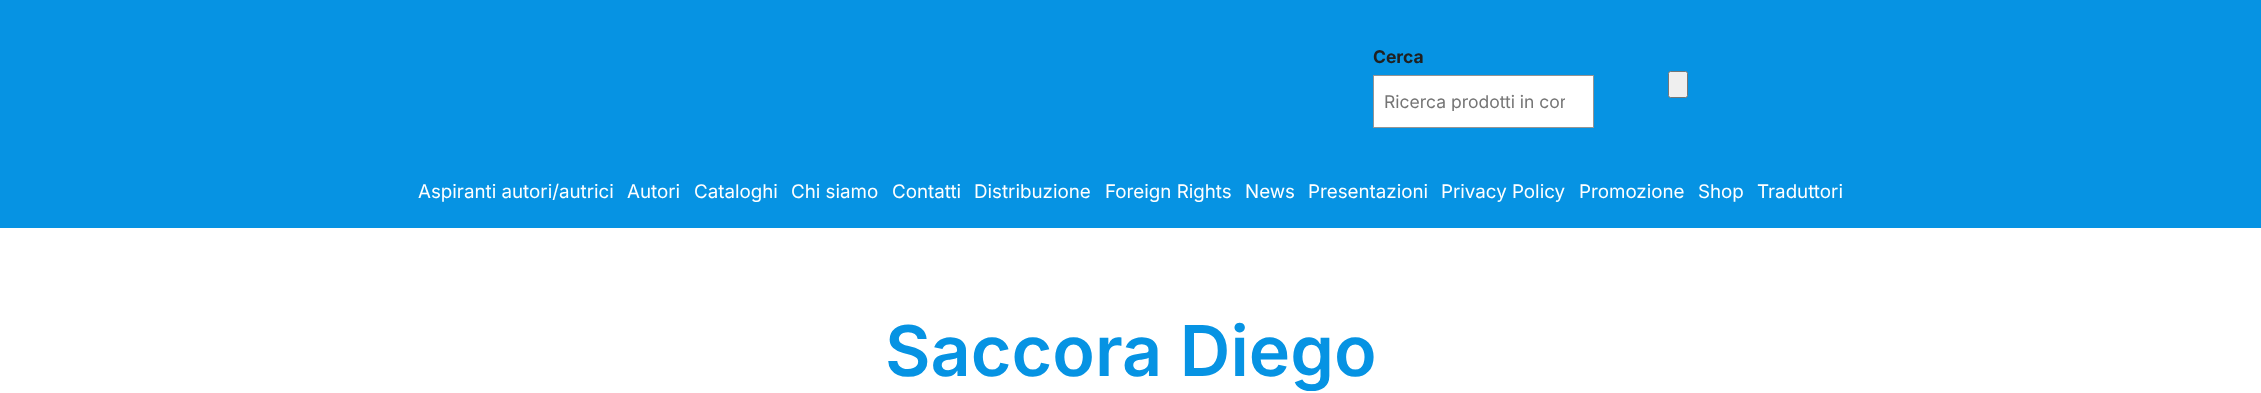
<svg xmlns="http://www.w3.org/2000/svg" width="2261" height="393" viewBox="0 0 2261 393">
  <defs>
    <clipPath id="clip1"><rect x="1384" y="90" width="181" height="21"/></clipPath>
  </defs>
  <rect width="100%" height="100%" fill="rgb(255,255,255)"/>
  <rect x="0" y="0" width="2261" height="228" fill="rgb(6,147,227)"/>
  <text x="1373" y="63" font-family="Inter" font-size="17.5" font-weight="bold" fill="rgb(32,32,32)">Cerca</text>
  <rect x="1373.5" y="75.5" width="220" height="52" fill="rgb(255,255,255)" stroke="rgb(148,148,148)"/>
  <g clip-path="url(#clip1)">
    <text x="1384" y="108" font-family="Inter" font-size="17.5" fill="rgb(117,117,117)">Ricerca prodotti in cor</text>
  </g>
  <rect x="1668.5" y="71.5" width="19" height="26" rx="2" fill="rgb(239,239,239)" stroke="rgb(118,118,118)"/>
  <g font-family="Inter" font-size="18.75" fill="rgb(255,255,255)">
    <text x="418" y="198">Aspiranti autori/autrici</text>
    <text x="627" y="198">Autori</text>
    <text x="694" y="198">Cataloghi</text>
    <text x="791" y="198">Chi siamo</text>
    <text x="892" y="198">Contatti</text>
    <text x="974" y="198">Distribuzione</text>
    <text x="1105" y="198">Foreign Rights</text>
    <text x="1245" y="198">News</text>
    <text x="1308" y="198">Presentazioni</text>
    <text x="1441" y="198">Privacy Policy</text>
    <text x="1579" y="198">Promozione</text>
    <text x="1698" y="198">Shop</text>
    <text x="1757" y="198">Traduttori</text>
  </g>
  <text x="885" y="376" font-family="Inter" font-size="70" font-weight="600" fill="rgb(6,147,227)">Saccora Diego</text>
</svg>
